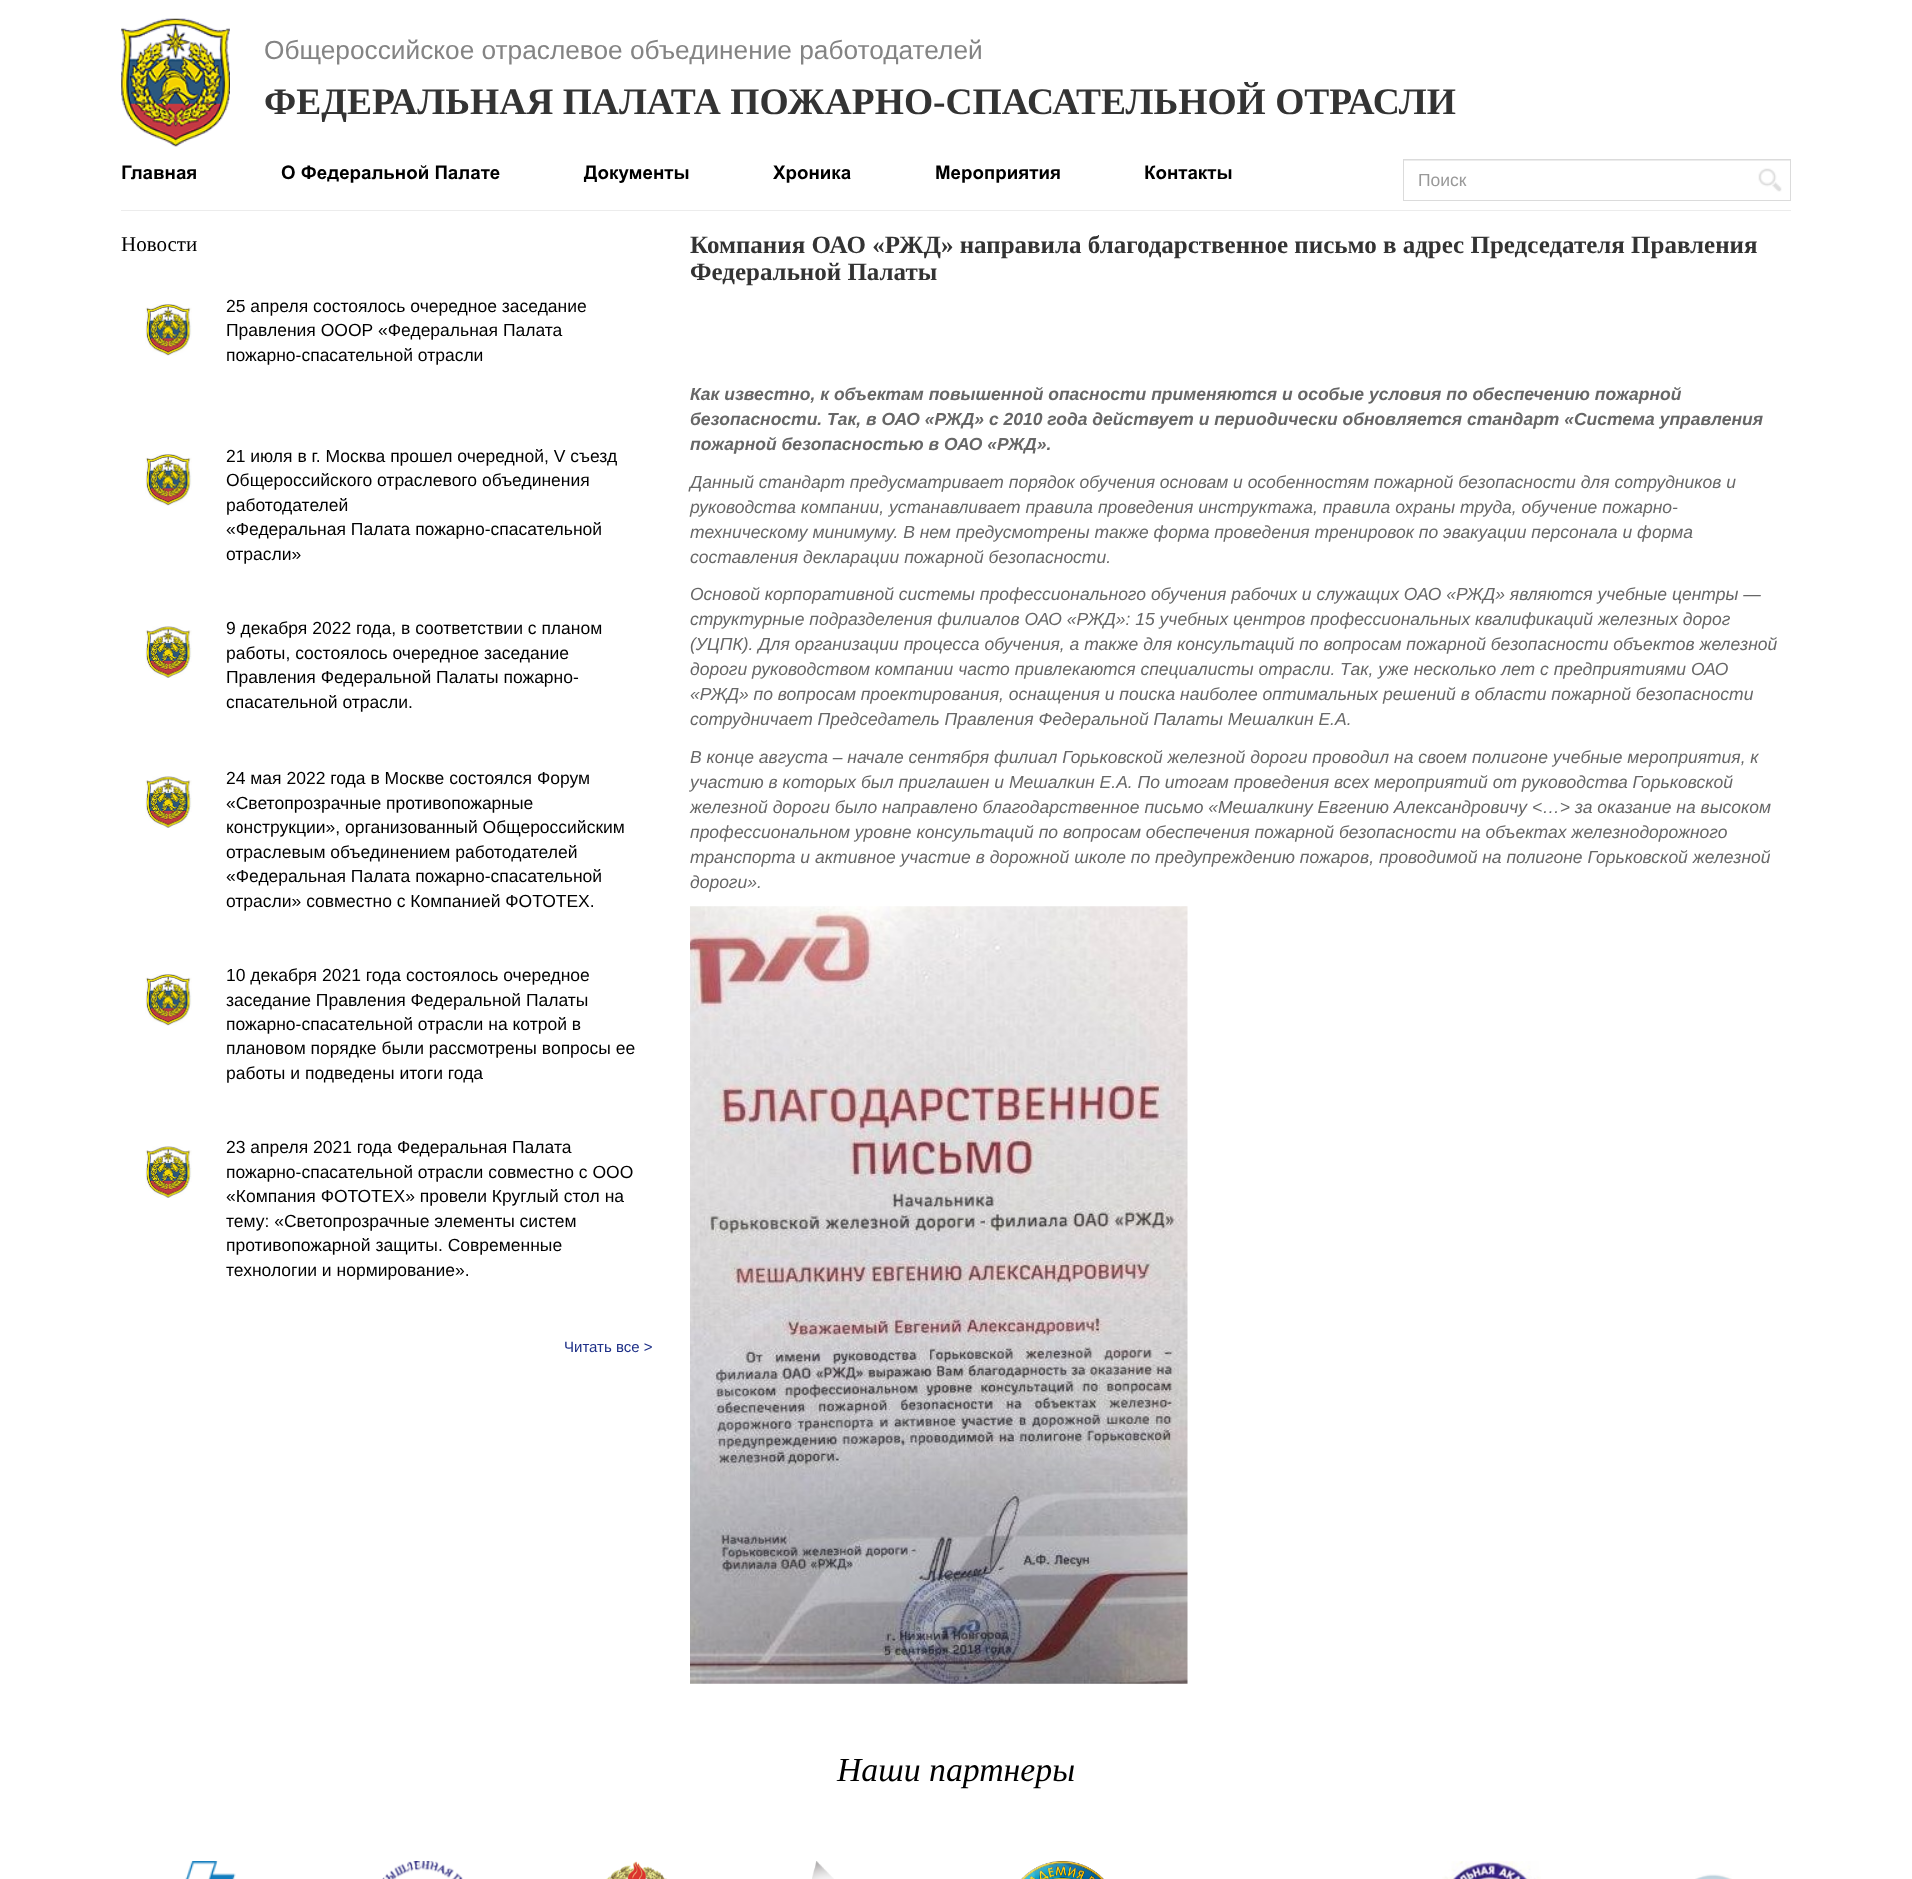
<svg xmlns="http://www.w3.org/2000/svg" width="1912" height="1879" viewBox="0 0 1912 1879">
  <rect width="100%" height="100%" fill="rgb(255,255,255)"/>
  <image x="121" y="18" width="109" height="129" href="pic1.png"/>
  <text x="264" y="59" font-family="Liberation Sans" font-size="26.25" fill="rgb(132,132,132)">Общероссийское отраслевое объединение работодателей</text>
  <text x="264" y="114" font-family="Liberation Serif" font-size="37.5" font-weight="bold" fill="rgb(51,51,51)">ФЕДЕРАЛЬНАЯ ПАЛАТА ПОЖАРНО-СПАСАТЕЛЬНОЙ ОТРАСЛИ</text>
  <rect x="121" y="210" width="1244" height="1" fill="rgb(236,236,236)"/>
  <g font-family="Arial" font-size="18.75" font-weight="bold" fill="rgb(0,0,0)">
    <text x="121" y="179">Главная</text>
    <text x="281" y="179">О Федеральной Палате</text>
    <text x="584" y="179">Документы</text>
    <text x="773" y="179">Хроника</text>
    <text x="935" y="179">Мероприятия</text>
    <text x="1144" y="179">Контакты</text>
  </g>
  <rect x="1364" y="210" width="427" height="1" fill="rgb(236,236,236)"/>
  <rect x="1404" y="160" width="386" height="1" fill="rgb(236,236,236)"/>
  <rect x="1403.5" y="159.5" width="387" height="41" fill="none" stroke="rgb(219,219,219)"/>
  <text x="1418" y="186" font-family="Liberation Sans" font-size="17.5" fill="rgb(153,153,153)">Поиск</text>
  <image x="1758" y="168" width="24" height="24" href="pic2.png"/>
  <text x="121" y="251" font-family="Liberation Serif" font-size="21" fill="rgb(0,0,0)">Новости</text>
  <image x="145" y="304" width="47" height="52" href="pic3.png"/>
  <g font-family="Liberation Sans" font-size="17.5" fill="rgb(0,0,0)">
    <text>
      <tspan x="226" y="312">25 апреля состоялось очередное заседание</tspan>
      <tspan x="226" y="336">Правления ОООР «Федеральная Палата</tspan>
      <tspan x="226" y="361">пожарно-спасательной отрасли</tspan>
    </text>
  </g>
  <image x="145" y="454" width="47" height="52" href="pic4.png"/>
  <g font-family="Liberation Sans" font-size="17.5" fill="rgb(0,0,0)">
    <text>
      <tspan x="226" y="462">21 июля в г. Москва прошел очередной, V съезд</tspan>
      <tspan x="226" y="486">Общероссийского отраслевого объединения</tspan>
      <tspan x="226" y="511">работодателей</tspan>
      <tspan x="226" y="535">«Федеральная Палата пожарно-спасательной</tspan>
      <tspan x="226" y="560">отрасли»</tspan>
    </text>
  </g>
  <image x="145" y="626" width="47" height="52" href="pic5.png"/>
  <g font-family="Liberation Sans" font-size="17.5" fill="rgb(0,0,0)">
    <text>
      <tspan x="226" y="634">9 декабря 2022 года, в соответствии с планом</tspan>
      <tspan x="226" y="659">работы, состоялось очередное заседание</tspan>
      <tspan x="226" y="683">Правления Федеральной Палаты пожарно-</tspan>
      <tspan x="226" y="708">спасательной отрасли.</tspan>
    </text>
  </g>
  <image x="145" y="776" width="47" height="52" href="pic5.png"/>
  <g font-family="Liberation Sans" font-size="17.5" fill="rgb(0,0,0)">
    <text>
      <tspan x="226" y="784">24 мая 2022 года в Москве состоялся Форум</tspan>
      <tspan x="226" y="809">«Светопрозрачные противопожарные</tspan>
      <tspan x="226" y="833">конструкции», организованный Общероссийским</tspan>
      <tspan x="226" y="858">отраслевым объединением работодателей</tspan>
      <tspan x="226" y="882">«Федеральная Палата пожарно-спасательной</tspan>
      <tspan x="226" y="907">отрасли» совместно с Компанией ФОТОТЕХ.</tspan>
    </text>
  </g>
  <image x="145" y="974" width="47" height="52" href="pic3.png"/>
  <g font-family="Liberation Sans" font-size="17.5" fill="rgb(0,0,0)">
    <text>
      <tspan x="226" y="981">10 декабря 2021 года состоялось очередное</tspan>
      <tspan x="226" y="1006">заседание Правления Федеральной Палаты</tspan>
      <tspan x="226" y="1030">пожарно-спасательной отрасли на котрой в</tspan>
      <tspan x="226" y="1054">плановом порядке были рассмотрены вопросы ее</tspan>
      <tspan x="226" y="1079">работы и подведены итоги года</tspan>
    </text>
  </g>
  <image x="145" y="1146" width="47" height="52" href="pic5.png"/>
  <g font-family="Liberation Sans" font-size="17.5" fill="rgb(0,0,0)">
    <text>
      <tspan x="226" y="1153">23 апреля 2021 года Федеральная Палата</tspan>
      <tspan x="226" y="1178">пожарно-спасательной отрасли совместно с ООО</tspan>
      <tspan x="226" y="1202">«Компания ФОТОТЕХ» провели Круглый стол на</tspan>
      <tspan x="226" y="1227">тему: «Светопрозрачные элементы систем</tspan>
      <tspan x="226" y="1251">противопожарной защиты. Современные</tspan>
      <tspan x="226" y="1276">технологии и нормирование».</tspan>
    </text>
  </g>
  <text x="564" y="1352" font-family="Liberation Sans" font-size="15" fill="rgb(29,47,135)">Читать все &gt;</text>
  <g font-family="Liberation Serif" font-size="25" font-weight="bold" fill="rgb(51,51,51)">
    <text>
      <tspan x="690" y="253">Компания ОАО «РЖД» направила благодарственное письмо в адрес Председателя Правления</tspan>
      <tspan x="690" y="280">Федеральной Палаты</tspan>
    </text>
  </g>
  <g font-family="Liberation Sans" font-size="17.5" font-weight="bold" font-style="italic" fill="rgb(103,103,103)">
    <text>
      <tspan x="690" y="400">Как известно, к объектам повышенной опасности применяются и особые условия по обеспечению пожарной</tspan>
      <tspan x="690" y="425">безопасности. Так, в ОАО «РЖД» с 2010 года действует и периодически обновляется стандарт «Система управления</tspan>
      <tspan x="690" y="450">пожарной безопасностью в ОАО «РЖД».</tspan>
    </text>
  </g>
  <g font-family="Liberation Sans" font-size="17.5" font-style="italic" fill="rgb(103,103,103)">
    <text>
      <tspan x="690" y="488">Данный стандарт предусматривает порядок обучения основам и особенностям пожарной безопасности для сотрудников и</tspan>
      <tspan x="690" y="513">руководства компании, устанавливает правила проведения инструктажа, правила охраны труда, обучение пожарно-</tspan>
      <tspan x="690" y="538">техническому минимуму. В нем предусмотрены также форма проведения тренировок по эвакуации персонала и форма</tspan>
      <tspan x="690" y="563">составления декларации пожарной безопасности.</tspan>
    </text>
    <text>
      <tspan x="690" y="600">Основой корпоративной системы профессионального обучения рабочих и служащих ОАО «РЖД» являются учебные центры —</tspan>
      <tspan x="690" y="625">структурные подразделения филиалов ОАО «РЖД»: 15 учебных центров профессиональных квалификаций железных дорог</tspan>
      <tspan x="690" y="650">(УЦПК). Для организации процесса обучения, а также для консультаций по вопросам пожарной безопасности объектов железной</tspan>
      <tspan x="690" y="675">дороги руководством компании часто привлекаются специалисты отрасли. Так, уже несколько лет с предприятиями ОАО</tspan>
      <tspan x="690" y="700">«РЖД» по вопросам проектирования, оснащения и поиска наиболее оптимальных решений в области пожарной безопасности</tspan>
      <tspan x="690" y="725">сотрудничает Председатель Правления Федеральной Палаты Мешалкин Е.А.</tspan>
    </text>
    <text>
      <tspan x="690" y="763">В конце августа – начале сентября филиал Горьковской железной дороги проводил на своем полигоне учебные мероприятия, к</tspan>
      <tspan x="690" y="788">участию в которых был приглашен и Мешалкин Е.А. По итогам проведения всех мероприятий от руководства Горьковской</tspan>
      <tspan x="690" y="813">железной дороги было направлено благодарственное письмо «Мешалкину Евгению Александровичу &lt;…&gt; за оказание на высоком</tspan>
      <tspan x="690" y="838">профессиональном уровне консультаций по вопросам обеспечения пожарной безопасности на объектах железнодорожного</tspan>
      <tspan x="690" y="863">транспорта и активное участие в дорожной школе по предупреждению пожаров, проводимой на полигоне Горьковской железной</tspan>
      <tspan x="690" y="888">дороги».</tspan>
    </text>
  </g>
  <image x="690" y="906" width="498" height="778" href="pic6.png"/>
  <text x="837" y="1781" font-family="Liberation Serif" font-size="33.75" font-style="italic" fill="rgb(0,0,0)">Наши партнеры</text>
  <image x="185" y="1861" width="51" height="18" href="pic7.png"/>
  <image x="382" y="1861" width="81" height="18" href="pic8.png"/>
  <image x="606" y="1861" width="61" height="18" href="pic9.png"/>
  <image x="812" y="1861" width="22" height="18" href="pic10.png"/>
  <image x="1021" y="1861" width="83" height="18" href="pic11.png"/>
  <image x="1442" y="1861" width="99" height="18" href="pic12.png"/>
  <image x="1695" y="1874" width="37" height="5" href="pic13.png"/>
</svg>
